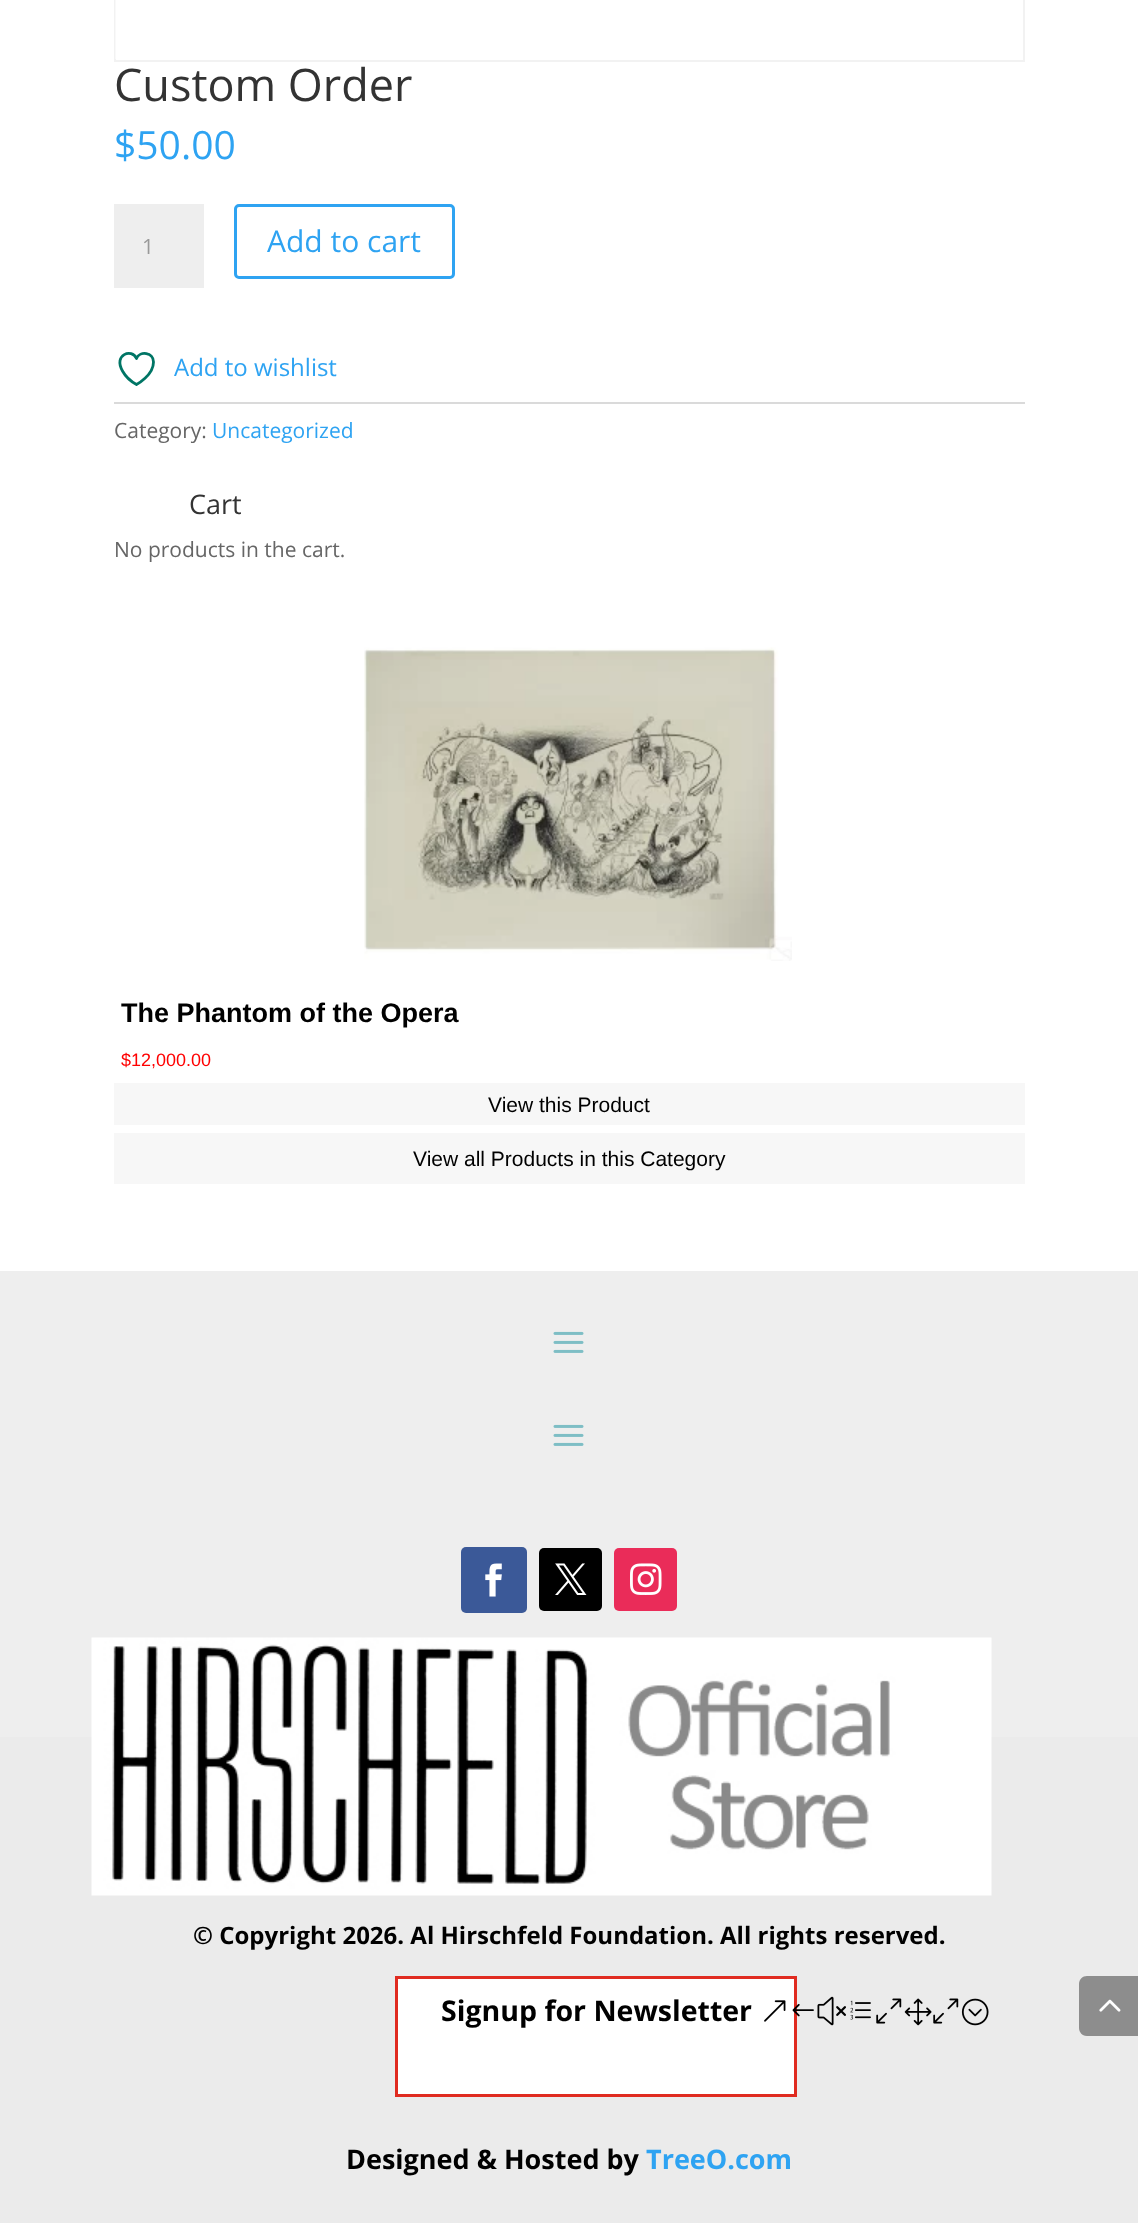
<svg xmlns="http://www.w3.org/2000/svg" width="1138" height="2223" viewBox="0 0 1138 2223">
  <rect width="100%" height="100%" fill="rgb(255,255,255)"/>
  <rect x="115" y="-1" width="909" height="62" fill="none" stroke="rgb(242,242,242)" stroke-width="2"/>
  <rect x="115" y="0" width="1" height="59" fill="rgb(249,249,249)"/>
  <text x="114" y="101" font-family="Open Sans" font-size="45" fill="rgb(51,51,51)">Custom Order</text>
  <text x="114" y="159" font-family="Open Sans" font-size="39" fill="rgb(46,163,242)">$50.00</text>
  <rect x="114" y="204" width="90" height="84" fill="rgb(238,238,238)"/>
  <text x="142" y="254" font-family="Open Sans" font-size="21" fill="rgb(153,153,153)">1</text>
  <rect x="235.5" y="205.5" width="218" height="72" rx="3.5" fill="none" stroke="rgb(46,163,242)" stroke-width="3"/>
  <text x="267" y="252" font-family="Open Sans" font-size="30" fill="rgb(46,163,242)">Add to cart</text>
  <path d="M153.5 362C153.5 352.5 140 350.5 136.5 358.5C132 348 113 354.5 122.5 371C125.5 376.5 131 381.5 136.5 384.5C136.5 384.5 153.5 375.5 153.5 362Z" fill="none" stroke="rgb(0,117,101)" stroke-width="2.8" stroke-linecap="round" stroke-linejoin="round"/>
  <text x="174" y="376" font-family="Open Sans" font-size="24" fill="rgb(46,163,242)">Add to wishlist</text>
  <rect x="114" y="402" width="911" height="2" fill="rgb(218,218,218)"/>
  <text x="114" y="438" font-family="Open Sans" font-size="21" fill="rgb(102,102,102)">Category:</text>
  <text x="212" y="438" font-family="Open Sans" font-size="21" fill="rgb(46,163,242)">Uncategorized</text>
  <text x="189" y="514" font-family="Open Sans" font-size="27" fill="rgb(51,51,51)">Cart</text>
  <text x="114" y="557" font-family="Open Sans" font-size="21" fill="rgb(102,102,102)">No products in the cart.</text>
  <image x="364" y="647" width="428" height="314" href="pic1.png"/>
  <text x="121" y="1022" font-family="Liberation Sans" font-size="27" font-weight="bold" fill="rgb(0,0,0)">The Phantom of the Opera</text>
  <text x="121" y="1066" font-family="Liberation Sans" font-size="18" fill="rgb(255,0,0)">$12,000.00</text>
  <rect x="114" y="1083" width="911" height="42" fill="rgb(247,247,247)"/>
  <text x="488" y="1112" font-family="Liberation Sans" font-size="21" fill="rgb(0,0,0)">View this Product</text>
  <rect x="114" y="1133" width="911" height="51" fill="rgb(247,247,247)"/>
  <text x="413" y="1166" font-family="Liberation Sans" font-size="21" fill="rgb(0,0,0)">View all Products in this Category</text>
  <rect x="0" y="1271" width="1138" height="466" fill="rgb(238,238,238)"/>
  <image x="553" y="1331" width="31" height="22" href="pic2.png"/>
  <image x="553" y="1424" width="31" height="22" href="pic2.png"/>
  <rect x="461" y="1547" width="66" height="66" rx="5" fill="rgb(59,89,152)"/>
  <image x="485" y="1563" width="17" height="34" href="pic3.png"/>
  <rect x="539" y="1548" width="63" height="63" rx="5" fill="rgb(0,0,0)"/>
  <image x="555" y="1563" width="32" height="32" href="pic4.png"/>
  <rect x="614" y="1548" width="63" height="63" rx="5" fill="rgb(234,44,89)"/>
  <image x="630" y="1563" width="32" height="32" href="pic5.png"/>
  <rect x="0" y="1737" width="1138" height="486" fill="rgb(235,235,235)"/>
  <image x="91" y="1637" width="901" height="259" href="pic6.png"/>
  <text x="193" y="1944" font-family="Open Sans" font-size="24" font-weight="bold" fill="rgb(0,0,0)">© Copyright 2026. Al Hirschfeld Foundation. All rights reserved.</text>
  <rect x="396.5" y="1977.5" width="399" height="118" fill="rgb(255,255,255)" stroke="rgb(224,43,32)" stroke-width="3"/>
  <text x="441" y="2021" font-family="Open Sans" font-size="28.5" font-weight="bold" fill="rgb(0,0,0)">Signup for Newsletter</text>
  <image x="764" y="1996" width="225" height="30" href="pic7.png"/>
  <text x="346" y="2169" font-family="Open Sans" font-size="27" font-weight="bold" fill="rgb(0,0,0)">Designed &amp; Hosted by</text>
  <text x="646" y="2169" font-family="Open Sans" font-size="27" font-weight="bold" fill="rgb(46,163,242)">TreeO.com</text>
  <path d="M1087 1976H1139V2036H1087C1082.5 2036 1079 2032.5 1079 2028V1984C1079 1979.5 1082.5 1976 1087 1976Z" fill="rgb(141,141,141)"/>
  <image x="1099" y="1999" width="22" height="13" href="pic8.png"/>
</svg>
